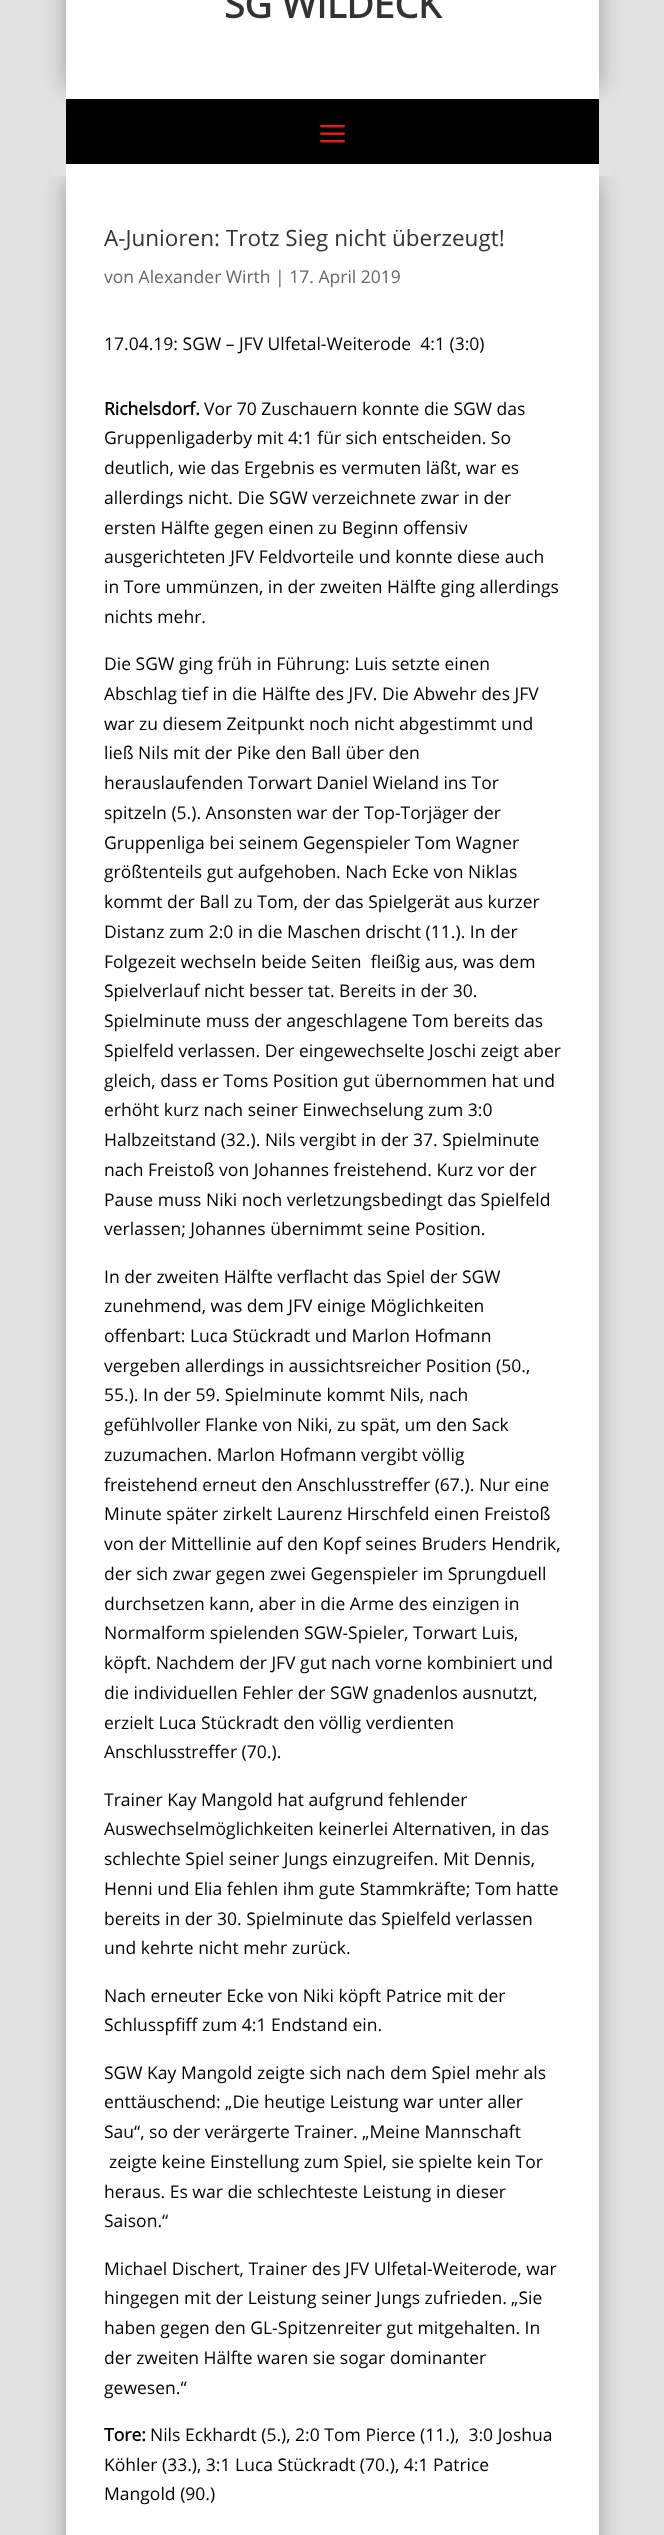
<svg xmlns="http://www.w3.org/2000/svg" width="664" height="2535" viewBox="0 0 664 2535">
  <rect width="100%" height="100%" fill="rgb(226,226,226)"/>
  <rect x="66" y="179" width="533" height="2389" fill="rgba(0,0,0,0.3)" filter="blur(11px)"/>
  <rect x="52" y="160" width="561" height="16" fill="rgb(226,226,226)"/>
  <rect x="66" y="-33" width="533" height="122" fill="rgba(0,0,0,0.3)" filter="blur(11px)"/>
  <rect x="66" y="0" width="533" height="176" fill="rgb(255,255,255)"/>
  <text x="224" y="18" font-family="Open Sans" font-size="37.5" font-weight="bold" fill="rgb(51,51,51)">SG WILDECK</text>
  <rect x="66" y="99" width="533" height="65" fill="rgb(0,0,0)"/>
  <image x="320" y="124" width="25" height="19" href="pic1.png"/>
  <rect x="66" y="176" width="533" height="2359" fill="rgb(255,255,255)"/>
  <text x="104" y="246" font-family="Open Sans" font-size="22.5" fill="rgb(51,51,51)">A-Junioren: Trotz Sieg nicht überzeugt!</text>
  <text x="104" y="283" font-family="Open Sans" font-size="17.5" fill="rgb(102,102,102)">von Alexander Wirth | 17. April 2019</text>
  <text x="104" y="350" font-family="Open Sans" font-size="17.5" fill="rgb(0,0,0)" xml:space="preserve">17.04.19: SGW – JFV Ulfetal-Weiterode  4:1 (3:0)</text>
  <text x="104" y="415" font-family="Open Sans" font-size="17.5" font-weight="bold" fill="rgb(0,0,0)">Richelsdorf.</text>
  <g font-family="Open Sans" font-size="17.5" fill="rgb(0,0,0)">
    <text x="204" y="415">Vor 70 Zuschauern konnte die SGW das</text>
    <text>
      <tspan x="104" y="444">Gruppenligaderby mit 4:1 für sich entscheiden. So</tspan>
      <tspan x="104" y="474">deutlich, wie das Ergebnis es vermuten läßt, war es</tspan>
      <tspan x="104" y="504">allerdings nicht. Die SGW verzeichnete zwar in der</tspan>
      <tspan x="104" y="534">ersten Hälfte gegen einen zu Beginn offensiv</tspan>
      <tspan x="104" y="563">ausgerichteten JFV Feldvorteile und konnte diese auch</tspan>
      <tspan x="104" y="593">in Tore ummünzen, in der zweiten Hälfte ging allerdings</tspan>
      <tspan x="104" y="623">nichts mehr.</tspan>
    </text>
    <text xml:space="preserve"><tspan x="104" y="670">Die SGW ging früh in Führung: Luis setzte einen</tspan><tspan x="104" y="700">Abschlag tief in die Hälfte des JFV. Die Abwehr des JFV</tspan><tspan x="104" y="730">war zu diesem Zeitpunkt noch nicht abgestimmt und</tspan><tspan x="104" y="759">ließ Nils mit der Pike den Ball über den</tspan><tspan x="104" y="789">herauslaufenden Torwart Daniel Wieland ins Tor</tspan><tspan x="104" y="819">spitzeln (5.). Ansonsten war der Top-Torjäger der</tspan><tspan x="104" y="849">Gruppenliga bei seinem Gegenspieler Tom Wagner</tspan><tspan x="104" y="878">größtenteils gut aufgehoben. Nach Ecke von Niklas</tspan><tspan x="104" y="908">kommt der Ball zu Tom, der das Spielgerät aus kurzer</tspan><tspan x="104" y="938">Distanz zum 2:0 in die Maschen drischt (11.). In der</tspan><tspan x="104" y="968">Folgezeit wechseln beide Seiten  fleißig aus, was dem</tspan><tspan x="104" y="997">Spielverlauf nicht besser tat. Bereits in der 30.</tspan><tspan x="104" y="1027">Spielminute muss der angeschlagene Tom bereits das</tspan><tspan x="104" y="1057">Spielfeld verlassen. Der eingewechselte Joschi zeigt aber</tspan><tspan x="104" y="1087">gleich, dass er Toms Position gut übernommen hat und</tspan><tspan x="104" y="1116">erhöht kurz nach seiner Einwechselung zum 3:0</tspan><tspan x="104" y="1146">Halbzeitstand (32.). Nils vergibt in der 37. Spielminute</tspan><tspan x="104" y="1176">nach Freistoß von Johannes freistehend. Kurz vor der</tspan><tspan x="104" y="1206">Pause muss Niki noch verletzungsbedingt das Spielfeld</tspan><tspan x="104" y="1235">verlassen; Johannes übernimmt seine Position.</tspan></text>
    <text>
      <tspan x="104" y="1283">In der zweiten Hälfte verflacht das Spiel der SGW</tspan>
      <tspan x="104" y="1312">zunehmend, was dem JFV einige Möglichkeiten</tspan>
      <tspan x="104" y="1342">offenbart: Luca Stückradt und Marlon Hofmann</tspan>
      <tspan x="104" y="1372">vergeben allerdings in aussichtsreicher Position (50.,</tspan>
      <tspan x="104" y="1401">55.). In der 59. Spielminute kommt Nils, nach</tspan>
      <tspan x="104" y="1431">gefühlvoller Flanke von Niki, zu spät, um den Sack</tspan>
      <tspan x="104" y="1461">zuzumachen. Marlon Hofmann vergibt völlig</tspan>
      <tspan x="104" y="1491">freistehend erneut den Anschlusstreffer (67.). Nur eine</tspan>
      <tspan x="104" y="1520">Minute später zirkelt Laurenz Hirschfeld einen Freistoß</tspan>
      <tspan x="104" y="1550">von der Mittellinie auf den Kopf seines Bruders Hendrik,</tspan>
      <tspan x="104" y="1580">der sich zwar gegen zwei Gegenspieler im Sprungduell</tspan>
      <tspan x="104" y="1610">durchsetzen kann, aber in die Arme des einzigen in</tspan>
      <tspan x="104" y="1639">Normalform spielenden SGW-Spieler, Torwart Luis,</tspan>
      <tspan x="104" y="1669">köpft. Nachdem der JFV gut nach vorne kombiniert und</tspan>
      <tspan x="104" y="1699">die individuellen Fehler der SGW gnadenlos ausnutzt,</tspan>
      <tspan x="104" y="1729">erzielt Luca Stückradt den völlig verdienten</tspan>
      <tspan x="104" y="1758">Anschlusstreffer (70.).</tspan>
    </text>
    <text>
      <tspan x="104" y="1806">Trainer Kay Mangold hat aufgrund fehlender</tspan>
      <tspan x="104" y="1835">Auswechselmöglichkeiten keinerlei Alternativen, in das</tspan>
      <tspan x="104" y="1865">schlechte Spiel seiner Jungs einzugreifen. Mit Dennis,</tspan>
      <tspan x="104" y="1895">Henni und Elia fehlen ihm gute Stammkräfte; Tom hatte</tspan>
      <tspan x="104" y="1925">bereits in der 30. Spielminute das Spielfeld verlassen</tspan>
      <tspan x="104" y="1954">und kehrte nicht mehr zurück.</tspan>
    </text>
    <text>
      <tspan x="104" y="2002">Nach erneuter Ecke von Niki köpft Patrice mit der</tspan>
      <tspan x="104" y="2031">Schlusspfiff zum 4:1 Endstand ein.</tspan>
    </text>
    <text>
      <tspan x="104" y="2079">SGW Kay Mangold zeigte sich nach dem Spiel mehr als</tspan>
      <tspan x="104" y="2108">enttäuschend: „Die heutige Leistung war unter aller</tspan>
      <tspan x="104" y="2138">Sau“, so der verärgerte Trainer. „Meine Mannschaft</tspan>
    </text>
    <text x="109" y="2168">zeigte keine Einstellung zum Spiel, sie spielte kein Tor</text>
    <text>
      <tspan x="104" y="2198">heraus. Es war die schlechteste Leistung in dieser</tspan>
      <tspan x="104" y="2227">Saison.“</tspan>
    </text>
    <text>
      <tspan x="104" y="2275">Michael Dischert, Trainer des JFV Ulfetal-Weiterode, war</tspan>
      <tspan x="104" y="2304">hingegen mit der Leistung seiner Jungs zufrieden. „Sie</tspan>
      <tspan x="104" y="2334">haben gegen den GL-Spitzenreiter gut mitgehalten. In</tspan>
      <tspan x="104" y="2364">der zweiten Hälfte waren sie sogar dominanter</tspan>
      <tspan x="104" y="2394">gewesen.“</tspan>
    </text>
  </g>
  <text x="104" y="2441" font-family="Open Sans" font-size="17.5" font-weight="bold" fill="rgb(0,0,0)">Tore:</text>
  <g font-family="Open Sans" font-size="17.5" fill="rgb(0,0,0)">
    <text x="150" y="2441" xml:space="preserve">Nils Eckhardt (5.), 2:0 Tom Pierce (11.),  3:0 Joshua</text>
    <text>
      <tspan x="104" y="2471">Köhler (33.), 3:1 Luca Stückradt (70.), 4:1 Patrice</tspan>
      <tspan x="104" y="2500">Mangold (90.)</tspan>
    </text>
  </g>
</svg>
